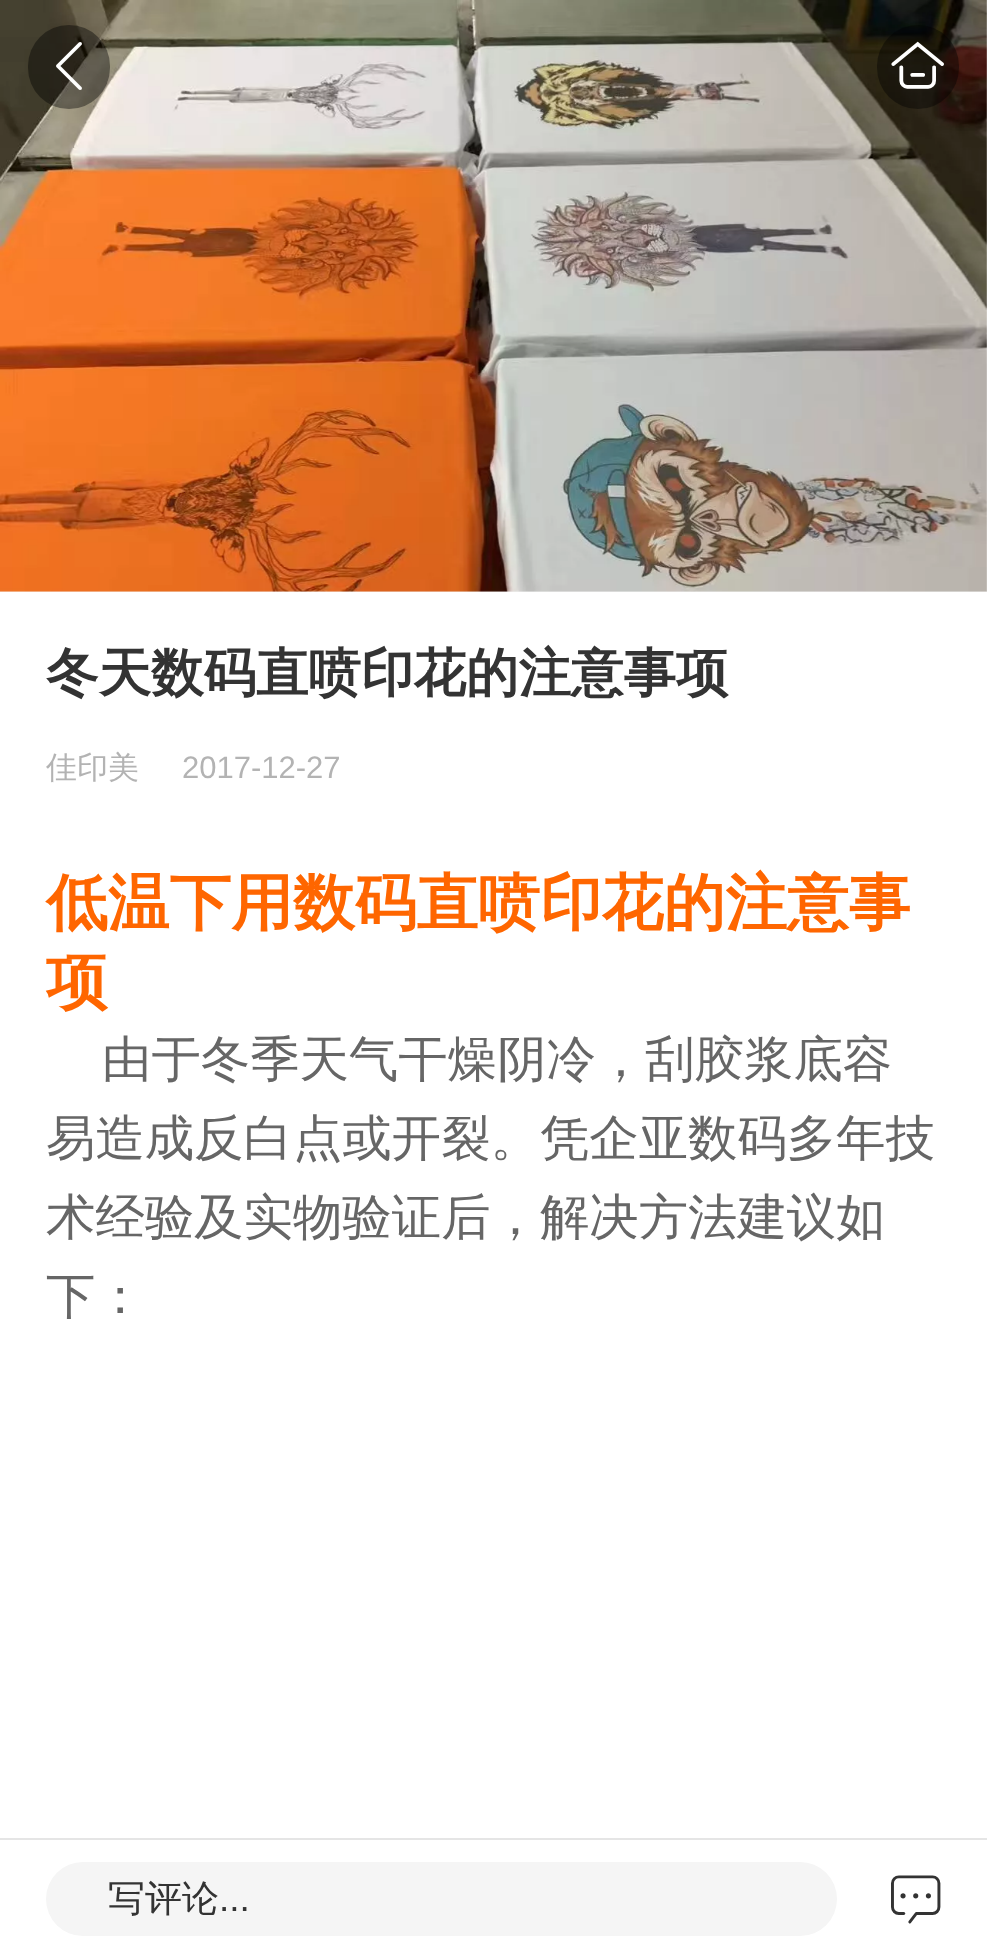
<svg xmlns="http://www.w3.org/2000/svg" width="987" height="1959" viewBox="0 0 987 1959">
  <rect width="100%" height="100%" fill="rgb(255,255,255)"/>
  <rect x="0" y="0" width="987" height="592" fill="rgb(246,246,246)"/>
  <image x="0" y="0" width="987" height="592" href="pic1.png"/>
  <rect x="28" y="25" width="82" height="84" rx="41" fill="rgba(0,0,0,0.4)"/>
  <text x="45" y="86" font-family="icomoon" font-size="48" fill="rgb(255,255,255)">򰊔</text>
  <rect x="877" y="25" width="82" height="84" rx="41" fill="rgba(0,0,0,0.4)"/>
  <text x="891" y="87" font-family="icomoon" font-size="52.5" fill="rgb(255,255,255)">򰌓</text>
  <text x="46" y="691" font-family="WenQuanYi Zen Hei" font-size="52.5" font-weight="bold" fill="rgb(51,51,51)">冬天数码直喷印花的注意事项</text>
  <text x="46" y="778" font-family="WenQuanYi Zen Hei" font-size="31" font-weight="500" fill="rgb(179,179,179)">佳印美</text>
  <text x="182" y="778" font-family="Liberation Sans" font-size="31" fill="rgb(179,179,179)">2017-12-27</text>
  <g font-family="WenQuanYi Zen Hei" font-size="61.75" font-weight="bold" fill="rgb(255,102,0)">
    <text>
      <tspan x="46" y="924">低温下用数码直喷印花的注意事</tspan>
      <tspan x="46" y="1003">项</tspan>
    </text>
  </g>
  <g font-family="WenQuanYi Zen Hei" font-size="49.4" font-weight="500" fill="rgb(102,102,102)">
    <text x="102" y="1076">由于冬季天气干燥阴冷，刮胶浆底容</text>
    <text>
      <tspan x="46" y="1155">易造成反白点或开裂。凭企亚数码多年技</tspan>
      <tspan x="46" y="1234">术经验及实物验证后，解决方法建议如</tspan>
      <tspan x="46" y="1313">下：</tspan>
    </text>
  </g>
  <rect x="0" y="1838" width="987" height="2" fill="rgb(229,229,229)"/>
  <rect x="46" y="1862" width="791" height="74" rx="37" fill="rgb(245,245,245)"/>
  <text x="108" y="1911" font-family="WenQuanYi Zen Hei" font-size="37" font-weight="500" fill="rgb(51,51,51)">写评论</text>
  <text x="219" y="1911" font-family="Liberation Sans" font-size="37" fill="rgb(51,51,51)">...</text>
  <text x="891" y="1920" font-family="icomoon" font-size="49.4" fill="rgb(51,51,51)">򰌇</text>
</svg>
